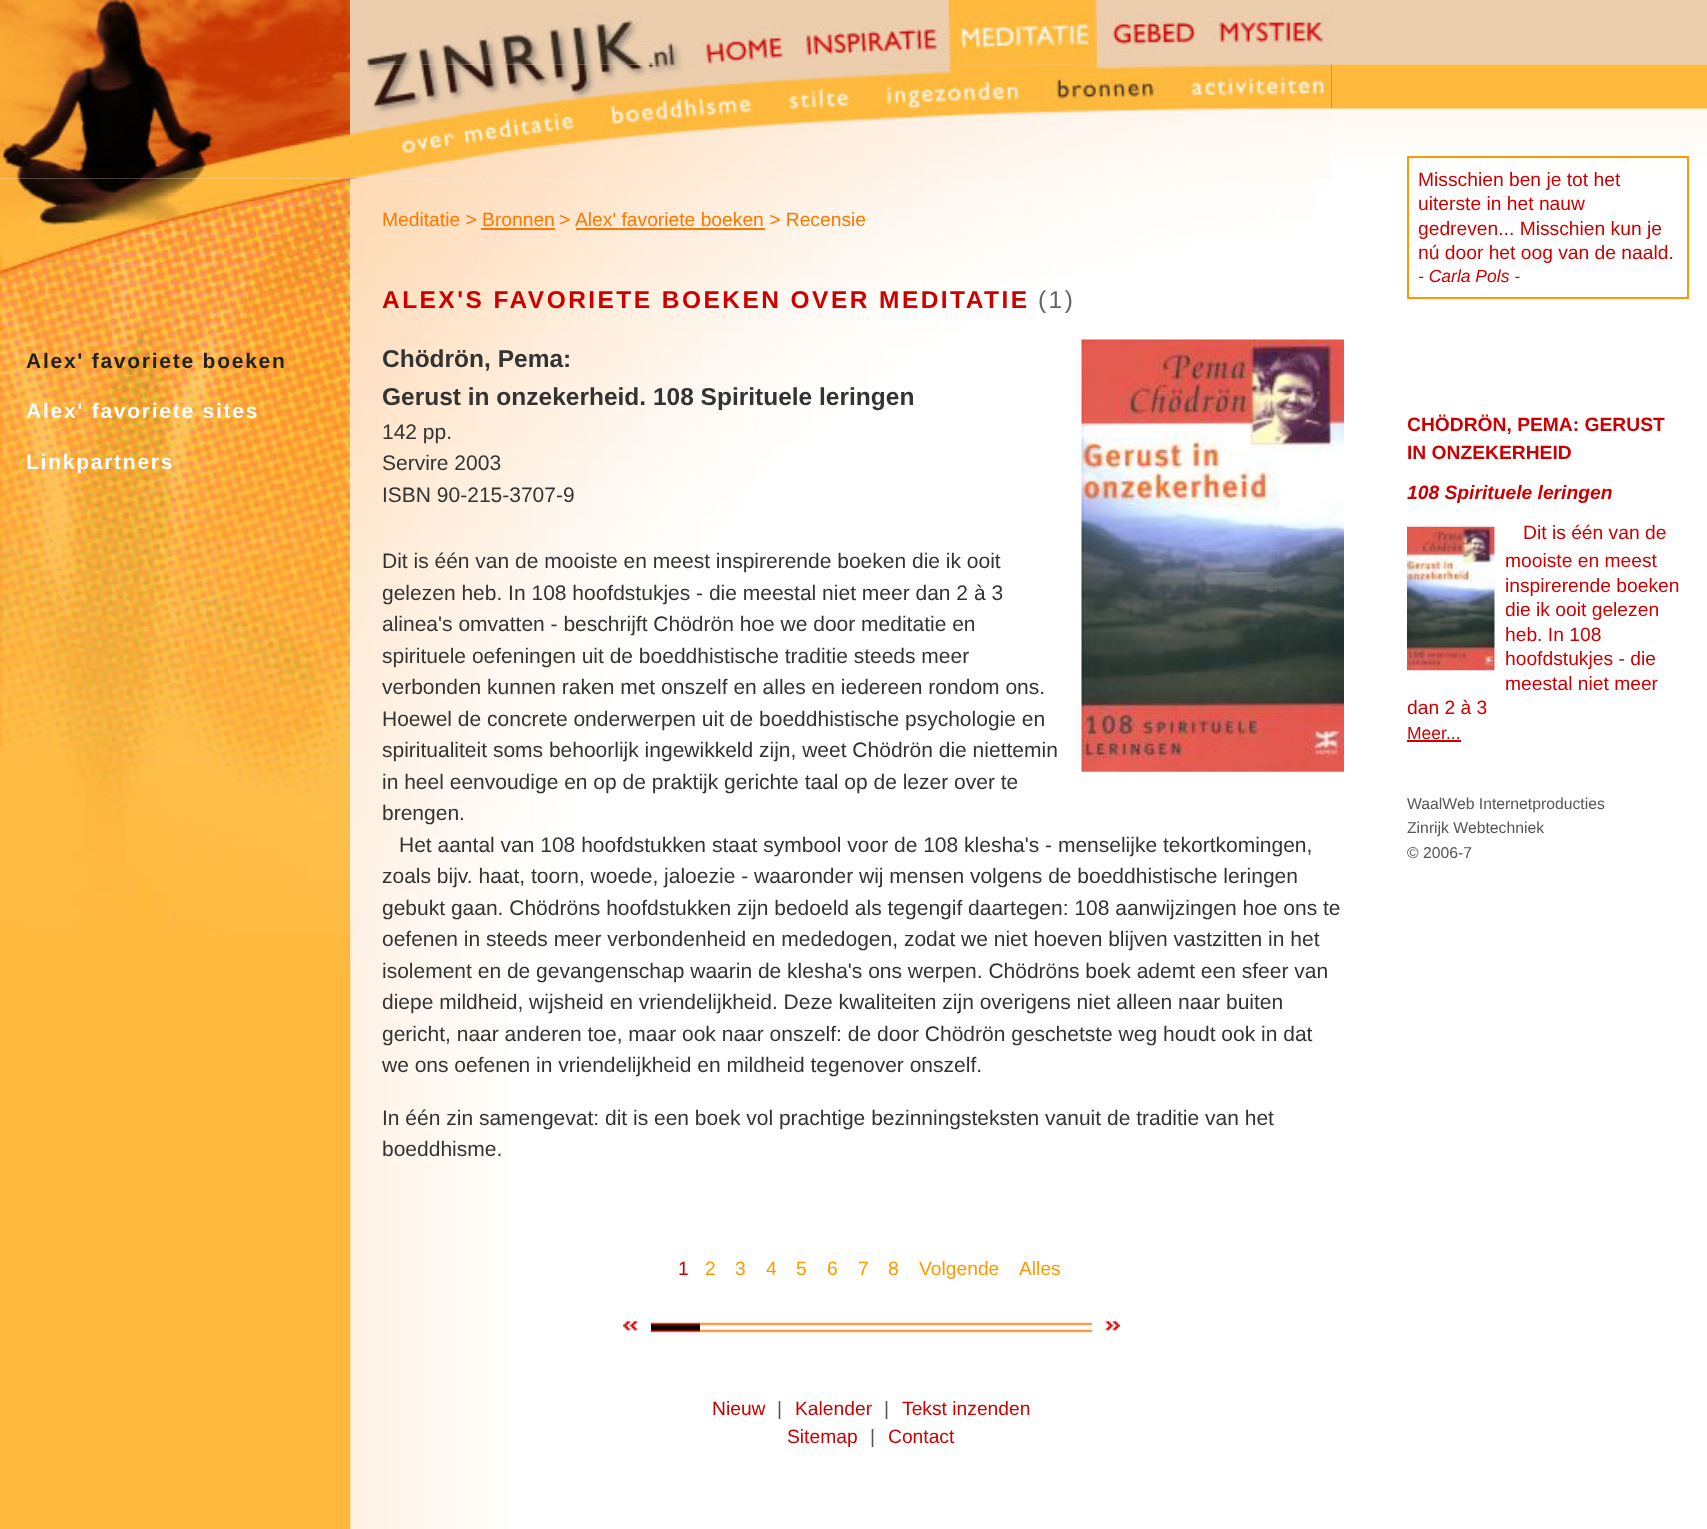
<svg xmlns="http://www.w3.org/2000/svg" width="1707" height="1529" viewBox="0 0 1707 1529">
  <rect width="100%" height="100%" fill="rgb(255,255,255)"/>
  <image x="350" y="962" width="158" height="567" href="pic1.png"/>
  <image x="0" y="0" width="1707" height="363" href="pic2.png"/>
  <image x="350" y="178" width="966" height="785" href="pic3.png"/>
  <rect x="0" y="934" width="350" height="595" fill="rgb(255,185,63)"/>
  <image x="0" y="0" width="350" height="179" href="pic7.png"/>
  <image x="0" y="178" width="350" height="756" href="pic4.png"/>
  <g font-family="Liberation Sans" font-size="19.25" fill="rgb(255,119,0)">
    <text x="382" y="226">Meditatie &gt; Bronnen</text>
    <text x="559" y="226">&gt;</text>
    <text x="575" y="226">Alex' favoriete boeken &gt; Recensie</text>
  </g>
  <rect x="576" y="228" width="189" height="2" fill="rgb(255,119,0)"/>
  <rect x="481" y="228" width="74" height="2" fill="rgb(255,119,0)"/>
  <text x="382" y="308" font-family="Liberation Sans" font-size="24.5" font-weight="bold" letter-spacing="2.45" fill="rgb(204,0,0)">ALEX'S FAVORIETE BOEKEN OVER MEDITATIE</text>
  <text x="1038" y="308" font-family="Liberation Sans" font-size="24.5" letter-spacing="2.45" fill="rgb(102,102,102)">(1)</text>
  <g font-family="Liberation Sans" font-size="24.5" font-weight="bold" fill="rgb(51,51,51)">
    <text>
      <tspan x="382" y="367">Chödrön, Pema:</tspan>
      <tspan x="382" y="405">Gerust in onzekerheid. 108 Spirituele leringen</tspan>
    </text>
  </g>
  <image x="1081" y="339" width="263" height="433" href="pic5.png"/>
  <g font-family="Liberation Sans" font-size="21" fill="rgb(51,51,51)">
    <text>
      <tspan x="382" y="439">142 pp.</tspan>
      <tspan x="382" y="470">Servire 2003</tspan>
      <tspan x="382" y="502">ISBN 90-215-3707-9</tspan>
    </text>
    <text>
      <tspan x="382" y="568">Dit is één van de mooiste en meest inspirerende boeken die ik ooit</tspan>
      <tspan x="382" y="600">gelezen heb. In 108 hoofdstukjes - die meestal niet meer dan 2 à 3</tspan>
      <tspan x="382" y="631">alinea's omvatten - beschrijft Chödrön hoe we door meditatie en</tspan>
      <tspan x="382" y="663">spirituele oefeningen uit de boeddhistische traditie steeds meer</tspan>
      <tspan x="382" y="694">verbonden kunnen raken met onszelf en alles en iedereen rondom ons.</tspan>
      <tspan x="382" y="726">Hoewel de concrete onderwerpen uit de boeddhistische psychologie en</tspan>
      <tspan x="382" y="757">spiritualiteit soms behoorlijk ingewikkeld zijn, weet Chödrön die niettemin</tspan>
      <tspan x="382" y="789">in heel eenvoudige en op de praktijk gerichte taal op de lezer over te</tspan>
      <tspan x="382" y="820">brengen.</tspan>
    </text>
    <text x="399" y="852">Het aantal van 108 hoofdstukken staat symbool voor de 108 klesha's - menselijke tekortkomingen,</text>
    <text>
      <tspan x="382" y="883">zoals bijv. haat, toorn, woede, jaloezie - waaronder wij mensen volgens de boeddhistische leringen</tspan>
      <tspan x="382" y="915">gebukt gaan. Chödröns hoofdstukken zijn bedoeld als tegengif daartegen: 108 aanwijzingen hoe ons te</tspan>
      <tspan x="382" y="946">oefenen in steeds meer verbondenheid en mededogen, zodat we niet hoeven blijven vastzitten in het</tspan>
      <tspan x="382" y="978">isolement en de gevangenschap waarin de klesha's ons werpen. Chödröns boek ademt een sfeer van</tspan>
      <tspan x="382" y="1009">diepe mildheid, wijsheid en vriendelijkheid. Deze kwaliteiten zijn overigens niet alleen naar buiten</tspan>
      <tspan x="382" y="1041">gericht, naar anderen toe, maar ook naar onszelf: de door Chödrön geschetste weg houdt ook in dat</tspan>
      <tspan x="382" y="1072">we ons oefenen in vriendelijkheid en mildheid tegenover onszelf.</tspan>
    </text>
    <text>
      <tspan x="382" y="1125">In één zin samengevat: dit is een boek vol prachtige bezinningsteksten vanuit de traditie van het</tspan>
      <tspan x="382" y="1156">boeddhisme.</tspan>
    </text>
  </g>
  <rect x="1408" y="157" width="280" height="141" fill="none" stroke="rgb(255,153,0)" stroke-width="2"/>
  <g font-family="Liberation Sans" font-size="19.25" fill="rgb(204,0,0)">
    <text>
      <tspan x="1418" y="186">Misschien ben je tot het</tspan>
      <tspan x="1418" y="210">uiterste in het nauw</tspan>
      <tspan x="1418" y="235">gedreven... Misschien kun je</tspan>
      <tspan x="1418" y="259">nú door het oog van de naald.</tspan>
    </text>
  </g>
  <text x="1418" y="282" font-family="Liberation Sans" font-size="17.5" font-style="italic" fill="rgb(204,0,0)">- Carla Pols -</text>
  <g font-family="Liberation Sans" font-size="19.25" font-weight="bold" fill="rgb(204,0,0)">
    <text>
      <tspan x="1407" y="431">CHÖDRÖN, PEMA: GERUST</tspan>
      <tspan x="1407" y="459">IN ONZEKERHEID</tspan>
    </text>
  </g>
  <text x="1407" y="499" font-family="Liberation Sans" font-size="19.25" font-weight="bold" font-style="italic" fill="rgb(204,0,0)">108 Spirituele leringen</text>
  <image x="1407" y="526" width="88" height="145" href="pic6.png"/>
  <g font-family="Liberation Sans" font-size="19.25" fill="rgb(204,0,0)">
    <text x="1523" y="539">Dit is één van de</text>
    <text>
      <tspan x="1505" y="567">mooiste en meest</tspan>
      <tspan x="1505" y="592">inspirerende boeken</tspan>
      <tspan x="1505" y="616">die ik ooit gelezen</tspan>
      <tspan x="1505" y="641">heb. In 108</tspan>
      <tspan x="1505" y="665">hoofdstukjes - die</tspan>
      <tspan x="1505" y="690">meestal niet meer</tspan>
    </text>
    <text x="1407" y="714">dan 2 à 3</text>
  </g>
  <text x="1407" y="739" font-family="Liberation Sans" font-size="17.5" fill="rgb(204,0,0)">Meer...</text>
  <rect x="1407" y="740" width="54" height="2" fill="rgb(204,0,0)"/>
  <g font-family="Liberation Sans" font-size="15.75" fill="rgb(85,85,85)">
    <text>
      <tspan x="1407" y="809">WaalWeb Internetproducties</tspan>
      <tspan x="1407" y="833">Zinrijk Webtechniek</tspan>
      <tspan x="1407" y="858">© 2006-7</tspan>
    </text>
  </g>
  <image x="350" y="64" width="982" height="115" href="pic14.png"/>
  <image x="350" y="64" width="982" height="115" href="pic15.png"/>
  <image x="350" y="64" width="982" height="115" href="pic16.png"/>
  <image x="350" y="64" width="982" height="115" href="pic17.png"/>
  <image x="350" y="64" width="982" height="115" href="pic18.png"/>
  <rect x="350" y="64" width="338" height="1" fill="rgb(236,205,174)"/>
  <image x="364" y="14" width="320" height="51" href="pic8.png"/>
  <image x="688" y="28" width="105" height="37" href="pic9.png"/>
  <image x="1039" y="64" width="135" height="114" href="pic19.png"/>
  <image x="948" y="0" width="150" height="65" href="pic11.png"/>
  <image x="793" y="0" width="156" height="65" href="pic10.png"/>
  <image x="1097" y="0" width="111" height="65" href="pic12.png"/>
  <image x="1207" y="14" width="125" height="51" href="pic13.png"/>
  <text x="26" y="368" font-family="Liberation Sans" font-size="21" font-weight="bold" letter-spacing="1.75" fill="rgb(34,34,34)">Alex' favoriete boeken</text>
  <g font-family="Liberation Sans" font-size="21" font-weight="bold" letter-spacing="1.75" fill="rgb(255,255,255)">
    <text x="26" y="418">Alex' favoriete sites</text>
    <text x="26" y="469">Linkpartners</text>
  </g>
  <text x="678" y="1275" font-family="Liberation Sans" font-size="19.25" fill="rgb(204,0,0)">1</text>
  <g font-family="Liberation Sans" font-size="19.25" fill="rgb(255,153,0)">
    <text x="705" y="1275">2</text>
    <text x="735" y="1275">3</text>
    <text x="766" y="1275">4</text>
    <text x="796" y="1275">5</text>
    <text x="827" y="1275">6</text>
    <text x="858" y="1275">7</text>
    <text x="888" y="1275">8</text>
    <text x="919" y="1275">Volgende</text>
    <text x="1019" y="1275">Alles</text>
  </g>
  <image x="623" y="1320" width="15" height="11" href="pic20.png"/>
  <image x="651" y="1322" width="49" height="11" href="pic21.png"/>
  <image x="700" y="1322" width="49" height="11" href="pic22.png"/>
  <image x="749" y="1322" width="49" height="11" href="pic22.png"/>
  <image x="798" y="1322" width="49" height="11" href="pic22.png"/>
  <image x="847" y="1322" width="49" height="11" href="pic22.png"/>
  <image x="896" y="1322" width="49" height="11" href="pic22.png"/>
  <image x="945" y="1322" width="49" height="11" href="pic22.png"/>
  <image x="994" y="1322" width="49" height="11" href="pic22.png"/>
  <image x="1043" y="1322" width="49" height="11" href="pic22.png"/>
  <image x="1105" y="1320" width="15" height="11" href="pic23.png"/>
  <text x="712" y="1415" font-family="Liberation Sans" font-size="19.25" fill="rgb(204,0,0)">Nieuw</text>
  <text x="777" y="1415" font-family="Liberation Sans" font-size="19.25" fill="rgb(85,85,85)">|</text>
  <text x="795" y="1415" font-family="Liberation Sans" font-size="19.25" fill="rgb(204,0,0)">Kalender</text>
  <text x="884" y="1415" font-family="Liberation Sans" font-size="19.25" fill="rgb(85,85,85)">|</text>
  <g font-family="Liberation Sans" font-size="19.25" fill="rgb(204,0,0)">
    <text x="902" y="1415">Tekst inzenden</text>
    <text x="787" y="1443">Sitemap</text>
  </g>
  <text x="870" y="1443" font-family="Liberation Sans" font-size="19.25" fill="rgb(85,85,85)">|</text>
  <text x="888" y="1443" font-family="Liberation Sans" font-size="19.25" fill="rgb(204,0,0)">Contact</text>
</svg>
